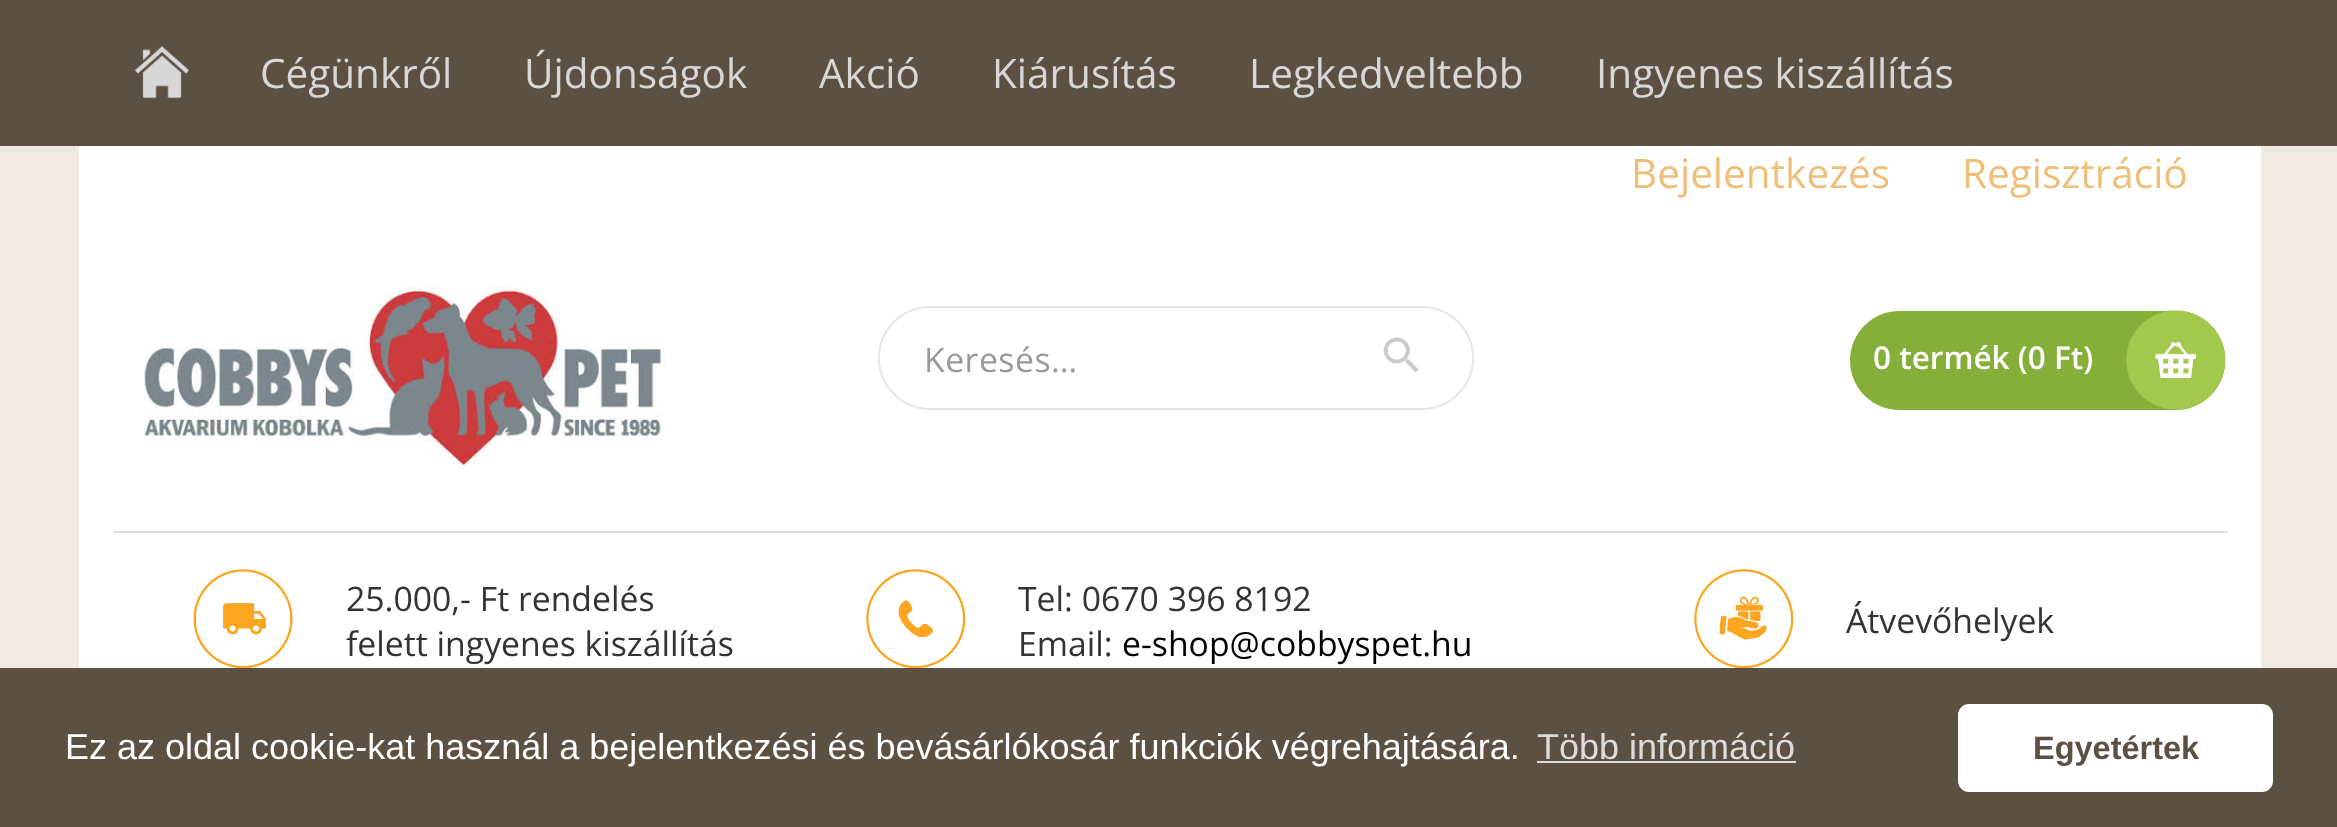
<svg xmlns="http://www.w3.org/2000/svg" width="2337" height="827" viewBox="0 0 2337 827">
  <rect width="100%" height="100%" fill="rgb(239,234,224)"/>
  <rect x="0" y="0" width="2337" height="146" fill="rgb(91,80,66)"/>
  <rect x="79" y="146" width="2182" height="522" fill="rgb(255,255,255)"/>
  <image x="135" y="46" width="54" height="53" href="pic1.png"/>
  <g font-family="Open Sans" font-size="40.5" fill="rgb(215,215,215)">
    <text x="260" y="88">Cégünkről</text>
    <text x="524" y="88">Újdonságok</text>
    <text x="819" y="88">Akció</text>
    <text x="992" y="88">Kiárusítás</text>
    <text x="1249" y="88">Legkedveltebb</text>
    <text x="1596" y="88">Ingyenes kiszállítás</text>
  </g>
  <g font-family="Open Sans" font-size="40.5" fill="rgb(239,191,122)">
    <text x="1631" y="188">Bejelentkezés</text>
    <text x="1962" y="188">Regisztráció</text>
  </g>
  <image x="143" y="287" width="523" height="180" href="pic2.png"/>
  <rect x="879" y="307" width="594" height="102" rx="51" fill="none" stroke="rgb(230,230,230)" stroke-width="2"/>
  <text x="924" y="372" font-family="Open Sans" font-size="33.75" letter-spacing="0.5" fill="rgb(153,153,153)">Keresés…</text>
  <image x="1383" y="337" width="36" height="36" href="pic3.png"/>
  <rect x="1850" y="311" width="375" height="99" rx="49.5" fill="rgb(134,175,58)"/>
  <text x="1873" y="369" font-family="Open Sans" font-size="31.5" font-weight="600" fill="rgb(255,255,255)">0 termék (0 Ft)</text>
  <image x="2126" y="310" width="100" height="100" href="pic4.png"/>
  <rect x="113" y="531" width="2115" height="2" fill="rgb(222,222,222)"/>
  <image x="193" y="569" width="100" height="99" href="pic5.png"/>
  <g font-family="Open Sans" font-size="33.75" fill="rgb(51,51,51)">
    <text>
      <tspan x="346" y="611">25.000,- Ft rendelés</tspan>
      <tspan x="346" y="656">felett ingyenes kiszállítás</tspan>
    </text>
  </g>
  <image x="866" y="569" width="100" height="99" href="pic6.png"/>
  <g font-family="Open Sans" font-size="33.75" fill="rgb(51,51,51)">
    <text>
      <tspan x="1018" y="611">Tel: 0670 396 8192</tspan>
      <tspan x="1018" y="656">Email:</tspan>
    </text>
  </g>
  <text x="1122" y="656" font-family="Open Sans" font-size="33.75" fill="rgb(0,0,0)">e-shop@cobbyspet.hu</text>
  <image x="1694" y="569" width="100" height="99" href="pic7.png"/>
  <text x="1846" y="633" font-family="Open Sans" font-size="33.75" fill="rgb(51,51,51)">Átvevőhelyek</text>
  <rect x="0" y="668" width="2337" height="159" fill="rgb(91,80,66)"/>
  <text x="65" y="759" font-family="Liberation Sans" font-size="36" fill="rgb(255,255,255)">Ez az oldal cookie-kat használ a bejelentkezési és bevásárlókosár funkciók végrehajtására.</text>
  <text x="1537" y="759" font-family="Liberation Sans" font-size="36" fill="rgb(222,220,217)">Több információ</text>
  <rect x="1537" y="761" width="259" height="2" fill="rgb(222,220,217)"/>
  <rect x="1958" y="704" width="315" height="88" rx="11" fill="rgb(255,255,255)"/>
  <text x="2033" y="759" font-family="Liberation Sans" font-size="32.5" font-weight="bold" fill="rgb(91,80,66)">Egyetértek</text>
</svg>
